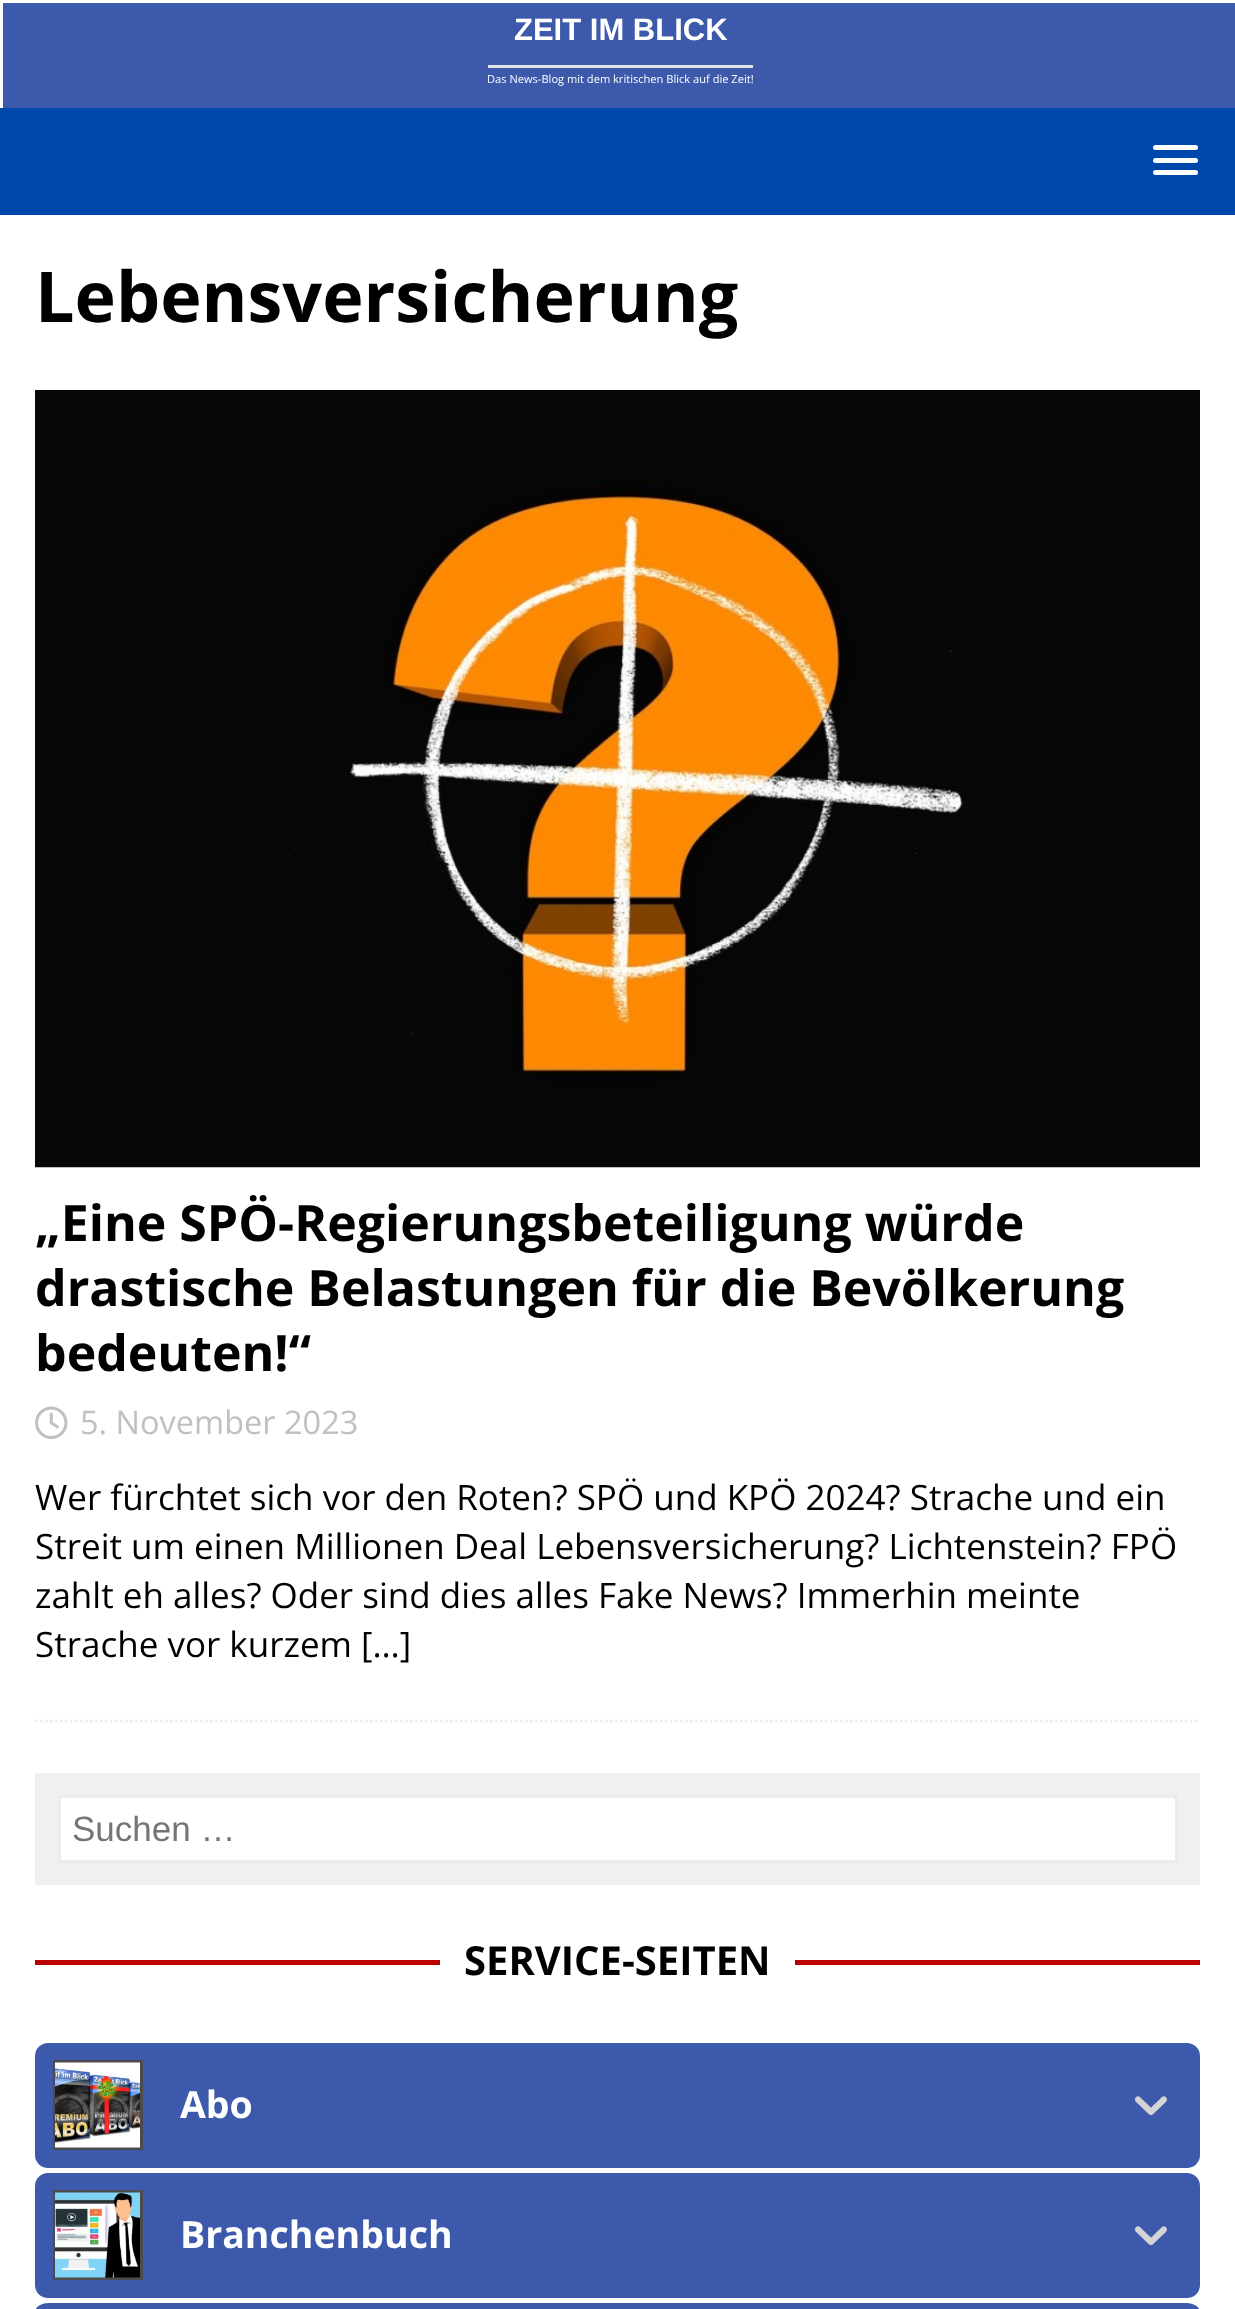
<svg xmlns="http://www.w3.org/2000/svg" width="1235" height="2309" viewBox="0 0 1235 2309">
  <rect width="100%" height="100%" fill="rgb(0,71,171)"/>
  <rect x="0" y="0" width="1235" height="3" fill="rgb(255,255,255)"/>
  <rect x="0" y="0" width="3" height="108" fill="rgb(255,255,255)"/>
  <rect x="3" y="3" width="1232" height="105" fill="rgb(61,89,171)"/>
  <text x="514" y="40" font-family="Liberation Sans" font-size="31" font-weight="bold" fill="rgb(255,255,255)">ZEIT IM BLICK</text>
  <rect x="488" y="65" width="265" height="3" fill="rgb(229,229,229)"/>
  <text x="487" y="83" font-family="Open Sans" font-size="11.1" fill="rgb(255,255,255)">Das News-Blog mit dem kritischen Blick auf die Zeit!</text>
  <rect x="1153" y="145" width="45" height="5" rx="2.5" fill="rgb(255,255,255)"/>
  <rect x="1153" y="158" width="45" height="5" rx="2.5" fill="rgb(255,255,255)"/>
  <rect x="1153" y="170" width="45" height="5" rx="2.5" fill="rgb(255,255,255)"/>
  <rect x="0" y="215" width="1235" height="2094" fill="rgb(255,255,255)"/>
  <text x="35" y="322" font-family="Open Sans" font-size="70" font-weight="bold" fill="rgb(0,0,0)">Lebensversicherung</text>
  <path d="M35 1721H1200" fill="none" stroke="rgb(235,235,235)" stroke-width="2.5" stroke-dasharray="2.5 2.5"/>
  <image x="35" y="390" width="1165" height="778" href="pic1.png"/>
  <g font-family="Open Sans" font-size="50" font-weight="bold" fill="rgb(0,0,0)">
    <text>
      <tspan x="35" y="1241">„Eine SPÖ-Regierungsbeteiligung würde</tspan>
      <tspan x="35" y="1306">drastische Belastungen für die Bevölkerung</tspan>
      <tspan x="35" y="1371">bedeuten!“</tspan>
    </text>
  </g>
  <image x="35" y="1406" width="33" height="33" href="pic2.png"/>
  <text x="80" y="1434" font-family="Open Sans" font-size="32.5" fill="rgb(192,192,192)">5. November 2023</text>
  <g font-family="Open Sans" font-size="35" fill="rgb(0,0,0)">
    <text>
      <tspan x="35" y="1510">Wer fürchtet sich vor den Roten? SPÖ und KPÖ 2024? Strache und ein</tspan>
      <tspan x="35" y="1559">Streit um einen Millionen Deal Lebensversicherung? Lichtenstein? FPÖ</tspan>
      <tspan x="35" y="1608">zahlt eh alles? Oder sind dies alles Fake News? Immerhin meinte</tspan>
      <tspan x="35" y="1657">Strache vor kurzem […]</tspan>
    </text>
  </g>
  <rect x="35" y="1773" width="1165" height="112" fill="rgb(240,240,240)"/>
  <rect x="59.5" y="1796.5" width="1117" height="65" fill="rgb(255,255,255)" stroke="rgb(235,235,235)" stroke-width="3"/>
  <text x="72" y="1841" font-family="Liberation Sans" font-size="35" fill="rgb(117,117,117)">Suchen …</text>
  <rect x="35" y="1960" width="1165" height="5" fill="rgb(186,0,0)"/>
  <rect x="440" y="1960" width="355" height="5" fill="rgb(255,255,255)"/>
  <text x="464" y="1975" font-family="Open Sans" font-size="40" font-weight="bold" fill="rgb(0,0,0)">SERVICE-SEITEN</text>
  <rect x="35" y="2043" width="1165" height="125" rx="13" fill="rgb(61,89,171)"/>
  <rect x="53" y="2060" width="90" height="90" fill="rgb(76,76,76)"/>
  <image x="55" y="2062" width="85" height="86" href="pic3.png"/>
  <text x="180" y="2118" font-family="Open Sans" font-size="37.5" font-weight="bold" fill="rgb(255,255,255)">Abo</text>
  <image x="1135" y="2096" width="32" height="19" href="pic4.png"/>
  <rect x="35" y="2173" width="1165" height="125" rx="13" fill="rgb(61,89,171)"/>
  <rect x="53" y="2190" width="90" height="90" fill="rgb(76,76,76)"/>
  <image x="55" y="2192" width="85" height="86" href="pic5.png"/>
  <text x="180" y="2248" font-family="Open Sans" font-size="37.5" font-weight="bold" fill="rgb(255,255,255)">Branchenbuch</text>
  <image x="1135" y="2226" width="32" height="19" href="pic4.png"/>
  <rect x="35" y="2303" width="1165" height="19" rx="13" fill="rgb(61,89,171)"/>
</svg>
